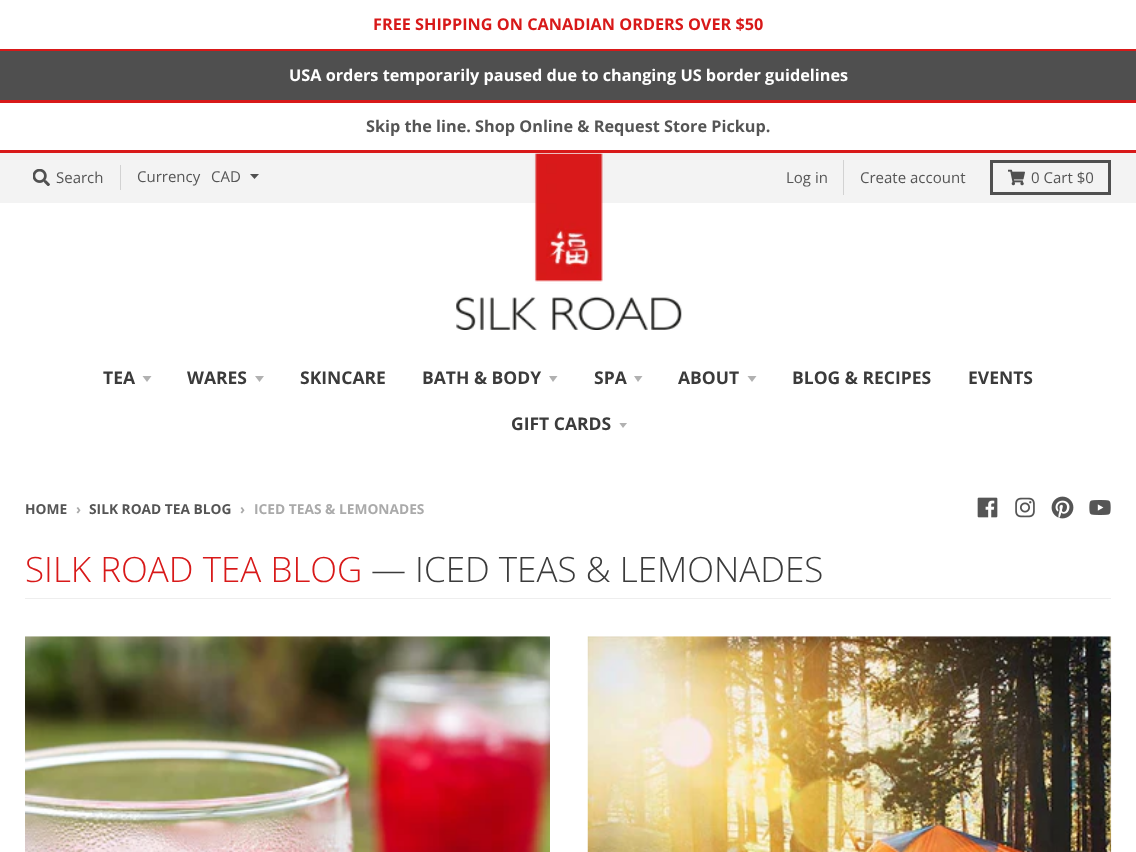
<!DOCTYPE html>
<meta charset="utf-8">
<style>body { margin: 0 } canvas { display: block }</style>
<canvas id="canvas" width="1136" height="852"></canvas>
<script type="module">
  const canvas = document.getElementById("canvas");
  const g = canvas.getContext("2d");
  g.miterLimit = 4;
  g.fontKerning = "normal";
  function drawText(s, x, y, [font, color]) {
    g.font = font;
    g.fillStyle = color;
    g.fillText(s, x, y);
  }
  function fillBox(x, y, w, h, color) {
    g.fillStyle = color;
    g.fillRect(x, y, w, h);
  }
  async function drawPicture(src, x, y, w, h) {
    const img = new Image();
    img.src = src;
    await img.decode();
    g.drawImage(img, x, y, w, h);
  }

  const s1 = ["bold 16.25px Open Sans", "#D81919"];
  const s2 = ["bold 16.25px Open Sans", "#FFFFFF"];
  const s3 = ["bold 16.25px Open Sans", "#555555"];
  const s4 = ["15px Open Sans", "#555555"];
  const s5 = ["bold 17.5px Open Sans", "#3B3B3B"];
  const s6 = ["bold 13.75px Open Sans", "#555555"];
  const s7 = ["bold 13.75px Open Sans", "#AAAAAA"];
  const s8 = ["300 35px Open Sans", "#D81919"];
  const s9 = ["300 35px Open Sans", "#3B3B3B"];

  fillBox(0, 0, 1136, 852, "#FFFFFF");
  fillBox(0, 49, 1136, 2, "#D81919");
  drawText("FREE SHIPPING ON CANADIAN ORDERS OVER $50", 373, 30, s1);
  fillBox(0, 100, 1136, 3, "#D81919");
  fillBox(0, 51, 1136, 49, "#4F4F4F");
  drawText("USA orders temporarily paused due to changing US border guidelines", 289, 81, s2);
  fillBox(0, 150, 1136, 3, "#D81919");
  drawText("Skip the line. Shop Online & Request Store Pickup.", 366, 132, s3);
  fillBox(0, 153, 1136, 50, "#F3F3F3");
  await drawPicture("pic1.png", 33, 169, 17, 17);
  drawText("Search", 56, 183, s4);
  fillBox(120, 165, 1, 25, "#D2D2D2");
  drawText("Currency", 137, 182, s4);
  g.fillStyle = "#505050";
  g.beginPath();
  g.moveTo(250, 174);
  g.lineTo(254.5, 179);
  g.lineTo(259, 174);
  g.closePath();
  g.fill();
  drawText("CAD", 211, 182, s4);
  fillBox(843, 160, 1, 35, "#D2D2D2");
  drawText("Log in", 786, 183, s4);
  drawText("Create account", 860, 183, s4);
  g.strokeStyle = "#505050";
  g.lineWidth = 3;
  g.strokeRect(991.5, 161.5, 118, 32);
  await drawPicture("pic2.png", 1008, 169, 17, 17);
  drawText("0 Cart $0", 1031, 183, s4);
  await drawPicture("pic3.png", 456, 153, 226, 177);
  drawText("TEA", 103, 384, s5);
  g.fillStyle = "#B1B1B1";
  g.beginPath();
  g.moveTo(142.5, 376);
  g.lineTo(147, 382);
  g.lineTo(151.5, 376);
  g.closePath();
  g.fill();
  drawText("WARES", 187, 384, s5);
  g.fillStyle = "#B1B1B1";
  g.beginPath();
  g.moveTo(255, 376);
  g.lineTo(259.5, 382);
  g.lineTo(264, 376);
  g.closePath();
  g.fill();
  drawText("SKINCARE", 300, 384, s5);
  drawText("BATH & BODY", 422, 384, s5);
  g.fillStyle = "#B1B1B1";
  g.beginPath();
  g.moveTo(549, 376);
  g.lineTo(553, 382);
  g.lineTo(557.5, 376);
  g.closePath();
  g.fill();
  drawText("SPA", 594, 384, s5);
  g.fillStyle = "#B1B1B1";
  g.beginPath();
  g.moveTo(634, 376);
  g.lineTo(638, 382);
  g.lineTo(642.5, 376);
  g.closePath();
  g.fill();
  drawText("ABOUT", 678, 384, s5);
  g.fillStyle = "#B1B1B1";
  g.beginPath();
  g.moveTo(747.5, 376);
  g.lineTo(752, 382);
  g.lineTo(756.5, 376);
  g.closePath();
  g.fill();
  drawText("BLOG & RECIPES", 792, 384, s5);
  drawText("EVENTS", 968, 384, s5);
  drawText("GIFT CARDS", 511, 430, s5);
  g.save();
  g.beginPath();
  g.rect(619, 423, 10, 6);
  g.clip();
  g.fillStyle = "#B1B1B1";
  g.beginPath();
  g.moveTo(619, 422.5);
  g.lineTo(623, 428);
  g.lineTo(627.5, 422.5);
  g.closePath();
  g.fill();
  g.restore();
  drawText("HOME", 25, 514, s6);
  drawText("›", 76, 514, s7);
  drawText("SILK ROAD TEA BLOG", 89, 514, s6);
  drawText("›", 240, 514, s7);
  drawText("ICED TEAS & LEMONADES", 254, 514, s7);
  await drawPicture("pic4.png", 977, 497, 21, 21);
  await drawPicture("pic5.png", 1015, 497, 20, 21);
  await drawPicture("pic6.png", 1051, 496, 23, 23);
  await drawPicture("pic7.png", 1089, 500, 22, 15);
  fillBox(25, 598, 1086, 1, "#EEEEEE");
  drawText("SILK ROAD TEA BLOG", 25, 582, s8);
  drawText("— ICED TEAS & LEMONADES", 371, 582, s9);
  await drawPicture("pic8.png", 25, 636, 525, 216);
  await drawPicture("pic9.png", 587, 636, 525, 216);
</script>
